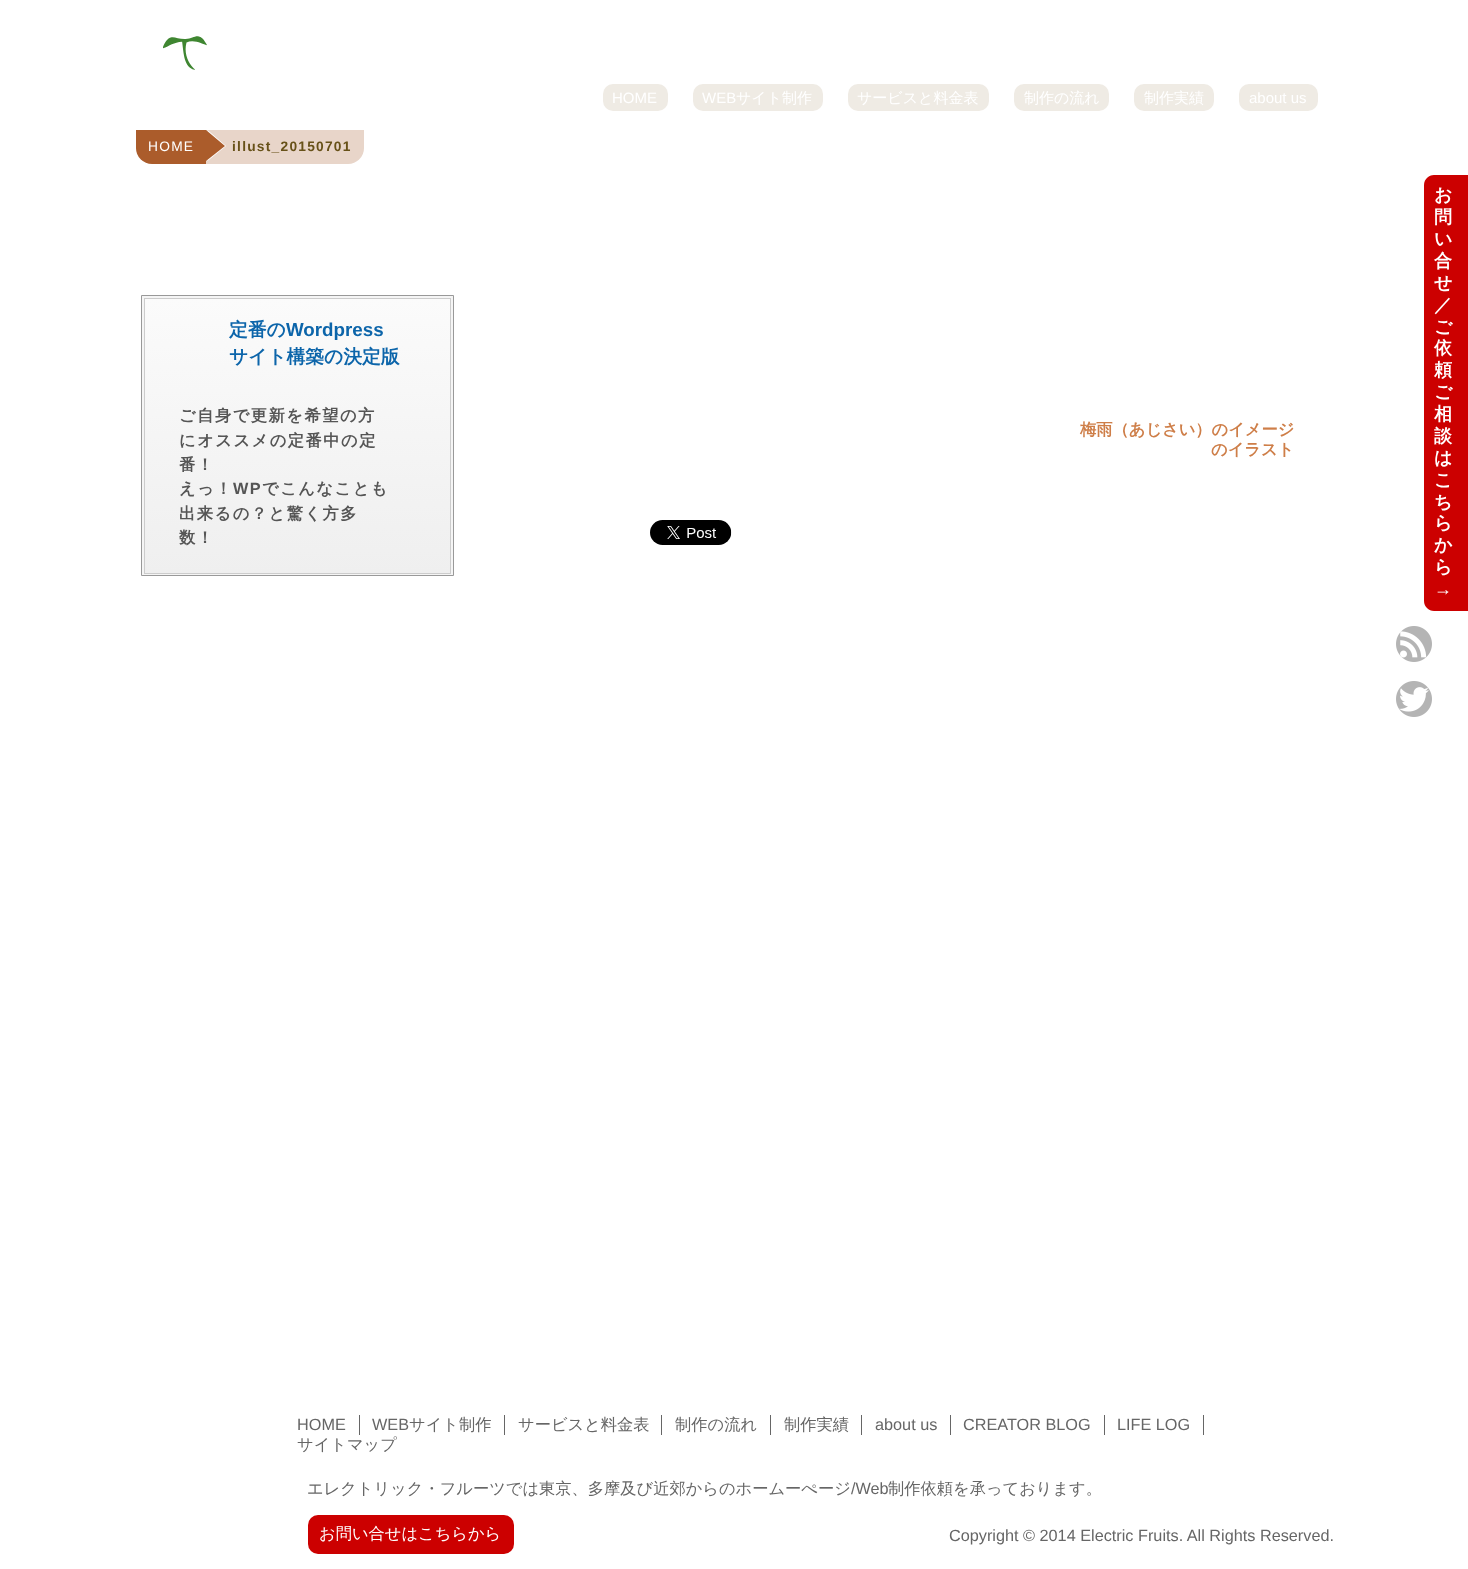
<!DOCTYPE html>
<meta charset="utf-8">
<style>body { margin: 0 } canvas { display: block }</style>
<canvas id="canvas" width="1468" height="1569"></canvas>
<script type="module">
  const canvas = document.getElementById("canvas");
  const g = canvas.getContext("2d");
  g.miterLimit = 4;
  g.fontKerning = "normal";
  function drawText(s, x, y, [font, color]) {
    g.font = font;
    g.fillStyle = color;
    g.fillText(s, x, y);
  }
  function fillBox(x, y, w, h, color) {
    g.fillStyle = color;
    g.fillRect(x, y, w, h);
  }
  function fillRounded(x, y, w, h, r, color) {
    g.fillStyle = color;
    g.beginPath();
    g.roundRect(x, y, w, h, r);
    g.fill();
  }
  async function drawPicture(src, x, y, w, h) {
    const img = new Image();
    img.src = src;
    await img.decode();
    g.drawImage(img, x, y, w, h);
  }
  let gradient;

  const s1 = ["13.75px Liberation Sans", "#FFFFFF"];
  const s2 = ["bold 13.75px Liberation Sans", "#675118"];
  const s3 = ["15px Liberation Sans", "#FFFFFF"];
  const s4 = ["500 15px WenQuanYi Zen Hei", "#FFFFFF"];
  const s5 = ["bold 18px WenQuanYi Zen Hei", "#FFFFFF"];
  const s6 = ["bold 18px Liberation Sans", "#FFFFFF"];
  const s7 = ["bold 18.75px WenQuanYi Zen Hei", "#0C65AA"];
  const s8 = ["bold 18.75px Liberation Sans", "#0C65AA"];
  const s9 = ["bold 16.25px WenQuanYi Zen Hei", "#555555"];
  const s10 = ["bold 16.25px Liberation Sans", "#555555"];
  const s11 = ["bold 16.25px WenQuanYi Zen Hei", "#CE7E48"];
  const s12 = ["16.25px Liberation Sans", "#666666"];
  const s13 = ["500 16.25px WenQuanYi Zen Hei", "#666666"];
  const s14 = ["500 16.25px WenQuanYi Zen Hei", "#FFFFFF"];

  fillBox(0, 0, 1468, 1569, "#FFFFFF");
  g.fillStyle = "#AB5C2B";
  g.beginPath();
  g.roundRect(136, 130, 70, 34, [0, 0, 0, 16]);
  g.fill();
  g.fillStyle = "#E8D5C9";
  g.beginPath();
  g.roundRect(206, 130, 158, 34, [0, 0, 16, 0]);
  g.fill();
  g.fillStyle = "#FFFFFF";
  g.beginPath();
  g.moveTo(207.5, 161);
  g.lineTo(207.5, 130);
  g.lineTo(226, 146);
  g.closePath();
  g.fill();
  g.fillStyle = "#AB5C2B";
  g.beginPath();
  g.moveTo(206, 161);
  g.lineTo(206, 130);
  g.lineTo(225, 146);
  g.closePath();
  g.fill();
  g.letterSpacing = "1.25px";
  drawText("HOME", 148, 151, s1);
  drawText("illust_20150701", 232, 151, s2);
  await drawPicture("pic1.png", 163, 36, 44, 34);
  fillRounded(603, 84, 65, 27, 10, "#EFEBE4");
  g.letterSpacing = "0px";
  drawText("HOME", 612, 103, s3);
  fillRounded(693, 84, 130, 27, 10, "#EFEBE4");
  drawText("WEB", 702, 103, s3);
  drawText("サイト制作", 736, 103, s4);
  fillRounded(848, 84, 141, 27, 10, "#EFEBE4");
  drawText("サービスと料金表", 857, 103, s4);
  fillRounded(1014, 84, 95, 27, 10, "#EFEBE4");
  drawText("制作の流れ", 1024, 103, s4);
  fillRounded(1134, 84, 80, 27, 10, "#EFEBE4");
  drawText("制作実績", 1144, 103, s4);
  fillRounded(1239, 84, 79, 27, 10, "#EFEBE4");
  drawText("about us", 1249, 103, s3);
  g.fillStyle = "#CC0000";
  g.beginPath();
  g.moveTo(1434, 175);
  g.lineTo(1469, 175);
  g.lineTo(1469, 611);
  g.lineTo(1434, 611);
  g.bezierCurveTo(1428.5, 611, 1424, 606.5, 1424, 601);
  g.lineTo(1424, 185);
  g.bezierCurveTo(1424, 179.5, 1428.5, 175, 1434, 175);
  g.closePath();
  g.fill();
  drawText("お", 1434, 201, s5);
  drawText("問", 1434, 223, s5);
  drawText("い", 1434, 245, s5);
  drawText("合", 1434, 267, s5);
  drawText("せ", 1434, 289, s5);
  drawText("／", 1434, 311, s5);
  drawText("ご", 1434, 333, s5);
  drawText("依", 1434, 354, s5);
  drawText("頼", 1434, 376, s5);
  drawText("ご", 1434, 398, s5);
  drawText("相", 1434, 420, s5);
  drawText("談", 1434, 442, s5);
  drawText("は", 1434, 464, s5);
  drawText("こ", 1434, 486, s5);
  drawText("ち", 1434, 508, s5);
  drawText("ら", 1434, 529, s5);
  drawText("か", 1434, 551, s5);
  drawText("ら", 1434, 573, s5);
  drawText("→", 1434, 595, s6);
  await drawPicture("pic2.png", 1396, 626, 36, 36);
  await drawPicture("pic3.png", 1396, 681, 36, 36);
  g.fillStyle = "#F5F5F5";
  g.beginPath();
  g.rect(141.5, 295.5, 312, 280);
  g.fill();
  g.strokeStyle = "#999999";
  g.stroke();
  gradient = g.createLinearGradient(298, 299, 298, 573);
  gradient.addColorStop(0, "#FBFBFB");
  gradient.addColorStop(1, "#EFEFEF");
  g.fillStyle = gradient;
  g.fillRect(145, 299, 305, 274);
  g.strokeStyle = "#CCCCCC";
  g.strokeRect(144.5, 298.5, 306, 275);
  drawText("定番の", 229, 336, s7);
  drawText("Wordpress", 286, 336, s8);
  drawText("サイト構築の決定版", 229, 363, s7);
  g.letterSpacing = "1.5px";
  drawText("ご自身で更新を希望の方", 179, 421, s9);
  drawText("にオススメの定番中の定", 179, 446, s9);
  drawText("番！", 179, 470, s9);
  drawText("えっ！", 179, 494, s9);
  drawText("WP", 233, 494, s10);
  drawText("でこんなことも", 262, 494, s9);
  drawText("出来るの？と驚く方多", 179, 519, s9);
  drawText("数！", 179, 543, s9);
  g.letterSpacing = "0px";
  drawText("梅雨（あじさい）のイメージ", 1080, 435, s11);
  drawText("のイラスト", 1211, 455, s11);
  await drawPicture("pic4.png", 650, 520, 82, 25);
  fillBox(359, 1415, 1, 20, "#666666");
  drawText("HOME", 297, 1430, s12);
  fillBox(504, 1415, 1, 20, "#666666");
  drawText("WEB", 372, 1430, s12);
  drawText("サイト制作", 409, 1430, s13);
  fillBox(661, 1415, 1, 20, "#666666");
  drawText("サービスと料金表", 518, 1430, s13);
  fillBox(770, 1415, 1, 20, "#666666");
  drawText("制作の流れ", 675, 1430, s13);
  fillBox(861, 1415, 1, 20, "#666666");
  drawText("制作実績", 784, 1430, s13);
  fillBox(950, 1415, 1, 20, "#666666");
  drawText("about us", 875, 1430, s12);
  fillBox(1104, 1415, 1, 20, "#666666");
  drawText("CREATOR BLOG", 963, 1430, s12);
  fillBox(1203, 1415, 1, 20, "#666666");
  drawText("LIFE LOG", 1117, 1430, s12);
  drawText("サイトマップ", 297, 1450, s13);
  drawText("エレクトリック・フルーツでは東京、多摩及び近郊からのホームーぺージ", 307, 1494, s13);
  drawText("/Web", 851, 1494, s12);
  drawText("制作依頼を承っております。", 888, 1494, s13);
  fillRounded(308, 1515, 206, 39, 10, "#CC0000");
  drawText("お問い合せはこちらから", 319, 1539, s14);
  drawText("Copyright © 2014 Electric Fruits. All Rights Reserved.", 949, 1541, s12);
</script>
